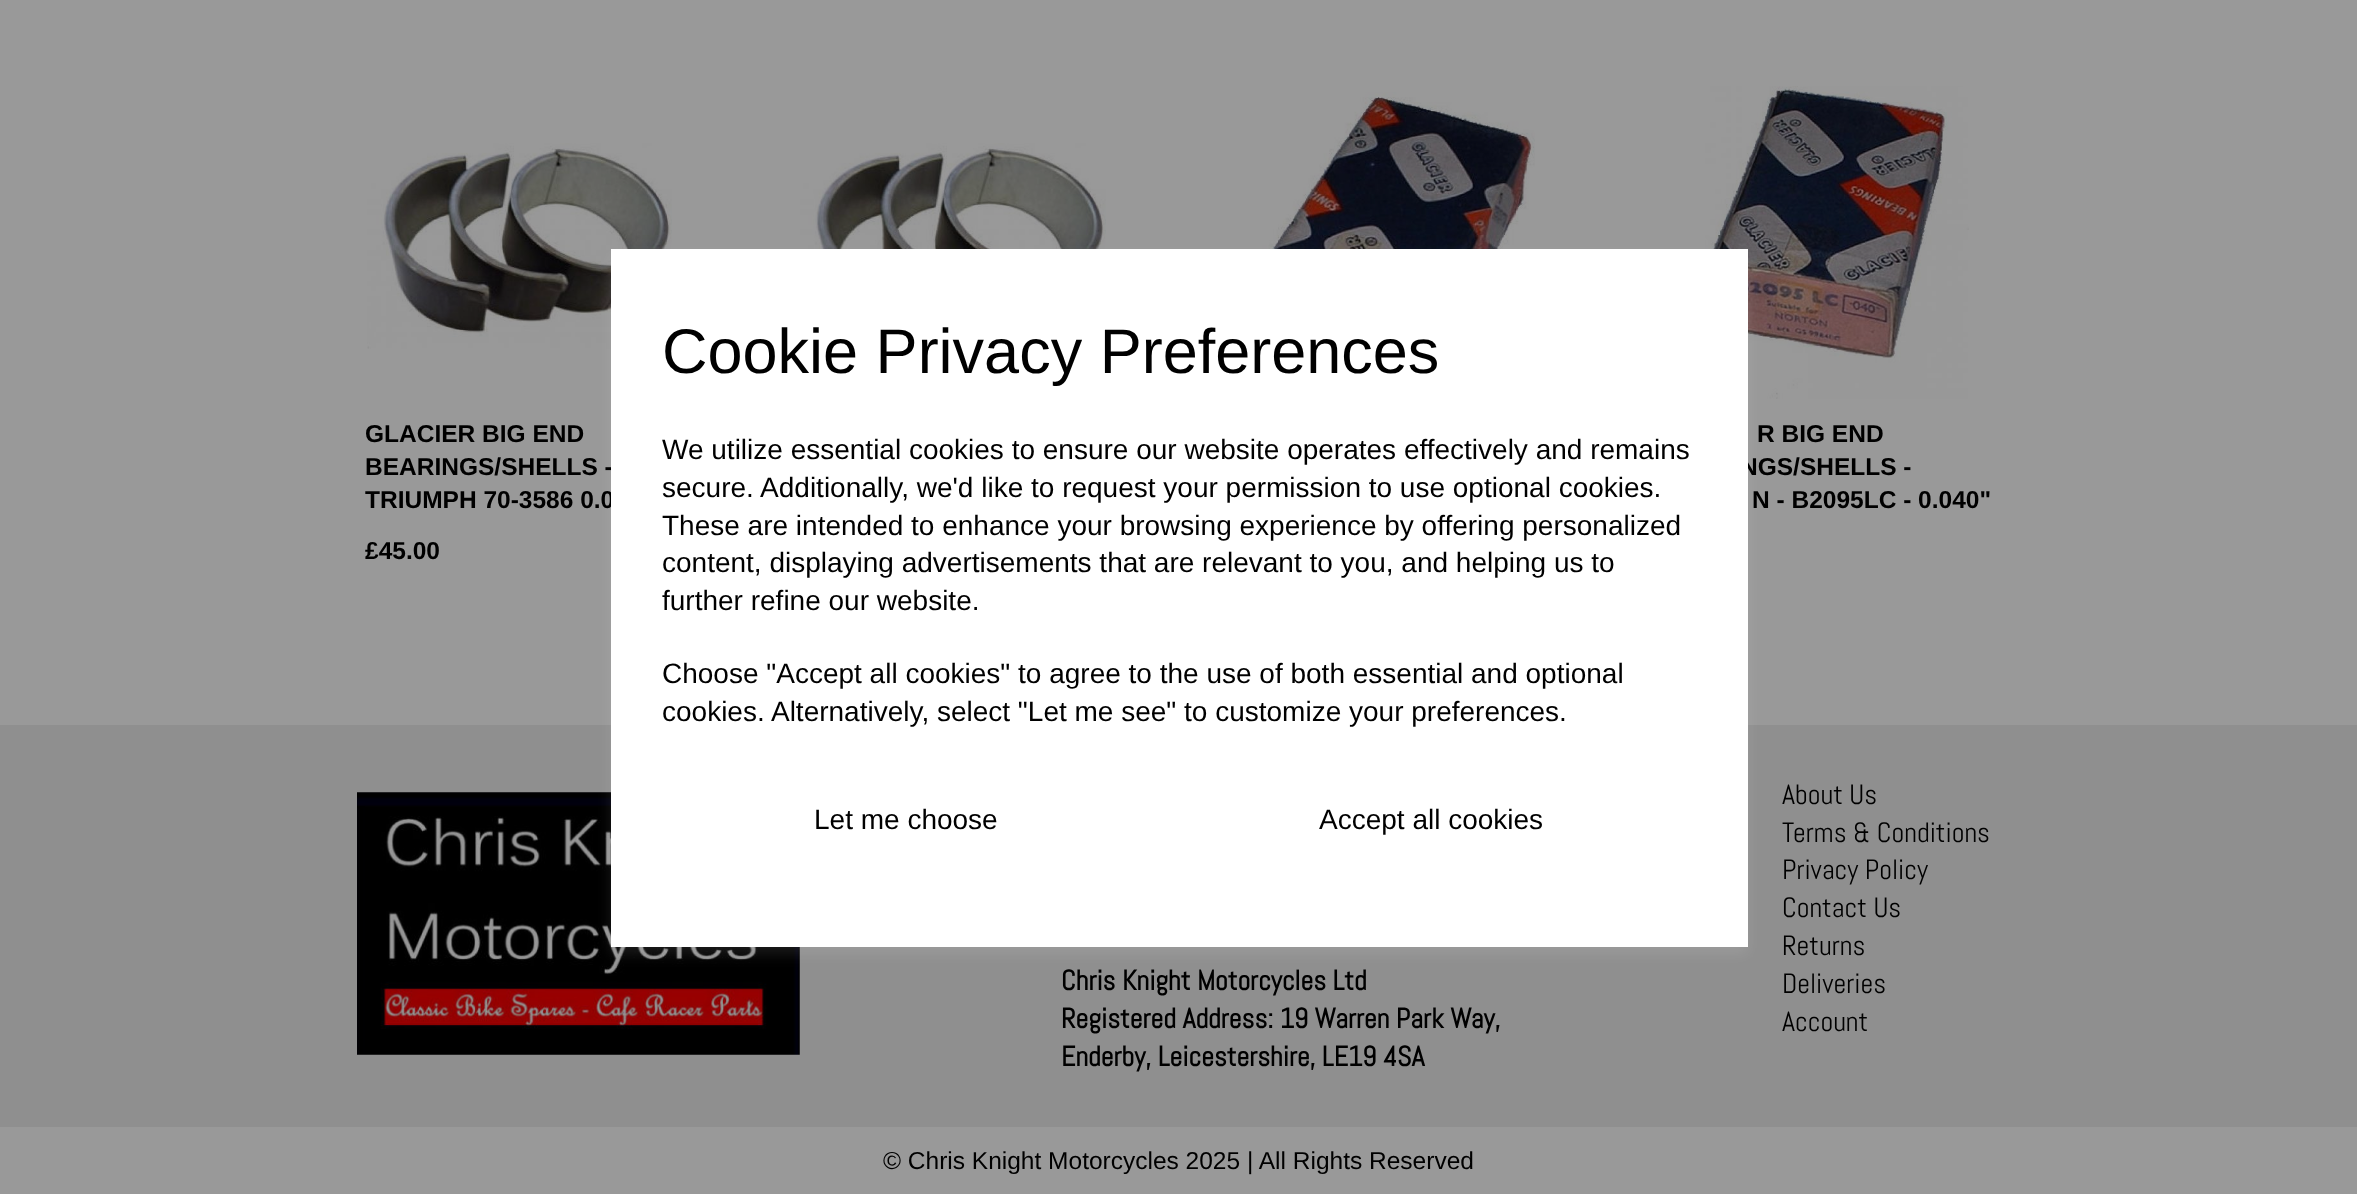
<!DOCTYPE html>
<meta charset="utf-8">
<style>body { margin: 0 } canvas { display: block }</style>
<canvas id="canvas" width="2357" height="1194"></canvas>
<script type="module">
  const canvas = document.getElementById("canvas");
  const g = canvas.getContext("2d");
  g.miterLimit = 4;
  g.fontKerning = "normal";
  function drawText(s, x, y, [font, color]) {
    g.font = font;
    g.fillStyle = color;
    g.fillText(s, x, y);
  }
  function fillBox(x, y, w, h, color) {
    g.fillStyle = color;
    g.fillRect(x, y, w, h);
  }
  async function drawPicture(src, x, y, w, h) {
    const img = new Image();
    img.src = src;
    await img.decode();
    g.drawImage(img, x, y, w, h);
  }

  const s1 = ["bold 24.5px Liberation Sans", "#000000"];
  const s2 = ["63px Liberation Sans", "#000000"];
  const s3 = ["28px Liberation Sans", "#000000"];
  const s4 = ["bold 28px Abel", "#000000"];
  const s5 = ["28px Abel", "#000000"];
  const s6 = ["24.5px Liberation Sans", "#000000"];

  fillBox(0, 0, 2357, 1194, "#999999");
  await drawPicture("pic1.png", 800, 143, 306, 106);
  await drawPicture("pic2.png", 1260, 92, 275, 157);
  await drawPicture("pic3.png", 367, 143, 305, 206);
  await drawPicture("pic4.png", 1702, 86, 267, 313);
  fillBox(0, 725, 2357, 402, "#8F8F8F");
  await drawPicture("pic5.png", 357, 792, 443, 263);
  g.fillStyle = "rgba(255, 255, 255, 0.1)";
  g.filter = "blur(7px)";
  g.beginPath();
  g.rect(611, 256, 1137, 698);
  g.fill();
  g.filter = "none";
  drawText("BEARINGS/SHELLS -", 365, 475, s1);
  drawText("TRIUMPH 70-3586 0.0", 365, 508, s1);
  drawText("NGS/SHELLS -", 1740, 475, s1);
  fillBox(611, 249, 1137, 698, "#FFFFFF");
  drawText("Cookie Privacy Preferences", 662, 373, s2);
  drawText("We utilize essential cookies to ensure our website operates effectively and remains", 662, 459, s3);
  drawText("secure. Additionally, we'd like to request your permission to use optional cookies.", 662, 497, s3);
  drawText("These are intended to enhance your browsing experience by offering personalized", 662, 535, s3);
  drawText("content, displaying advertisements that are relevant to you, and helping us to", 662, 572, s3);
  drawText("further refine our website.", 662, 610, s3);
  drawText("Choose \"Accept all cookies\" to agree to the use of both essential and optional", 662, 683, s3);
  drawText("cookies. Alternatively, select \"Let me see\" to customize your preferences.", 662, 721, s3);
  drawText("Let me choose", 814, 829, s3);
  drawText("Accept all cookies", 1319, 829, s3);
  drawText("GLACIER BIG END", 365, 442, s1);
  drawText("£45.00", 365, 559, s1);
  drawText("R BIG END", 1757, 442, s1);
  drawText("N - B2095LC - 0.040\"", 1752, 508, s1);
  drawText("Chris Knight Motorcycles Ltd", 1061, 990, s4);
  drawText("Registered Address: 19 Warren Park Way,", 1061, 1028, s4);
  drawText("Enderby, Leicestershire, LE19 4SA", 1061, 1066, s4);
  drawText("About Us", 1782, 804, s5);
  drawText("Terms & Conditions", 1782, 842, s5);
  drawText("Privacy Policy", 1782, 879, s5);
  drawText("Contact Us", 1782, 917, s5);
  drawText("Returns", 1782, 955, s5);
  drawText("Deliveries", 1782, 993, s5);
  drawText("Account", 1782, 1031, s5);
  drawText("© Chris Knight Motorcycles 2025 | All Rights Reserved", 883, 1169, s6);
</script>
